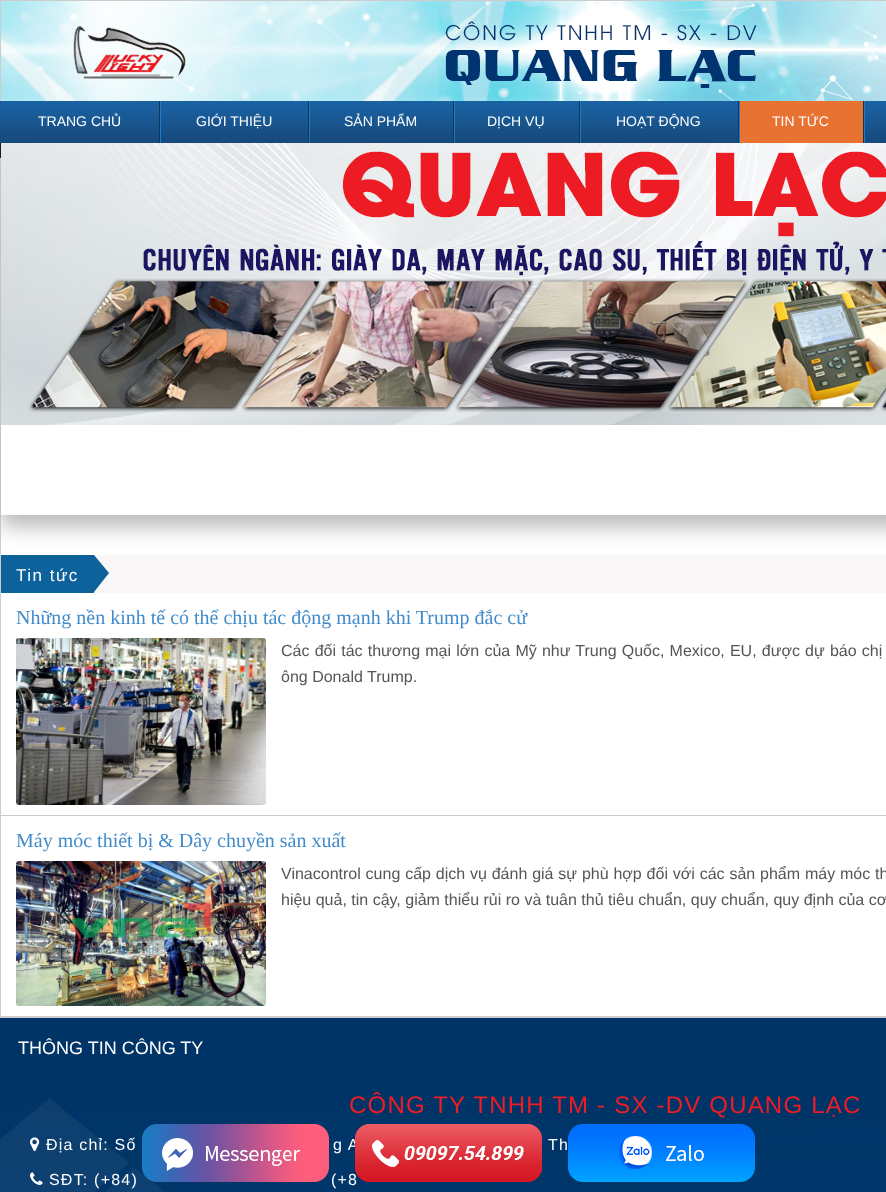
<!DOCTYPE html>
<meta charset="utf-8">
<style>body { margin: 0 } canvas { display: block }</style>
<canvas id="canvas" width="886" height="1192"></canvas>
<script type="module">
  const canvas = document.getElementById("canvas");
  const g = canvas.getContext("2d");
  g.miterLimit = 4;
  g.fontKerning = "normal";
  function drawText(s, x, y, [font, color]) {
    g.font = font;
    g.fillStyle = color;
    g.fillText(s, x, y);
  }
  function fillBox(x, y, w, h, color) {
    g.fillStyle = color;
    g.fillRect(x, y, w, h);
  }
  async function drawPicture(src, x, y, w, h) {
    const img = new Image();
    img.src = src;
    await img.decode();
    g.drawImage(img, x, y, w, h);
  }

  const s1 = ["14px Liberation Sans", "#FFFFFF"];
  const s2 = ["17px Liberation Sans", "#FFFFFF"];
  const s3 = ["20px Liberation Serif", "#428BCA"];
  const s4 = ["16px Liberation Sans", "#555555"];
  const s5 = ["18px Liberation Sans", "#FFFFFF"];
  const s6 = ["24px Liberation Sans", "#EE1C25"];
  const s7 = ["16px Liberation Sans", "#FFFFFF"];

  fillBox(0, 0, 886, 1192, "#FFFFFF");
  g.strokeStyle = "#CCCCCC";
  g.strokeRect(0.5, 0.5, 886, 1017);
  await drawPicture("pic1.png", 1, 1, 885, 100);
  g.save();
  g.beginPath();
  g.moveTo(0, 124);
  g.lineTo(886, 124);
  g.lineTo(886, 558);
  g.lineTo(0, 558);
  g.closePath();
  g.moveTo(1, 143);
  g.lineTo(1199, 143);
  g.lineTo(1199, 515);
  g.lineTo(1, 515);
  g.closePath();
  g.clip("evenodd");
  g.fillStyle = "#BBBBBB";
  g.filter = "blur(10px)";
  g.beginPath();
  g.rect(1, 155, 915, 372);
  g.fill();
  g.filter = "none";
  g.restore();
  await drawPicture("pic2.png", 1, 101, 885, 42);
  await drawPicture("pic3.png", 0, 101, 1, 57);
  drawText("TRANG CHỦ", 38, 126, s1);
  await drawPicture("pic4.png", 159, 101, 2, 42);
  drawText("GIỚI THIỆU", 196, 126, s1);
  await drawPicture("pic4.png", 308, 101, 2, 42);
  drawText("SẢN PHẨM", 344, 126, s1);
  await drawPicture("pic4.png", 453, 101, 2, 42);
  drawText("DỊCH VỤ", 487, 126, s1);
  await drawPicture("pic4.png", 579, 101, 2, 42);
  drawText("HOẠT ĐỘNG", 616, 126, s1);
  fillBox(740, 101, 123, 42, "#E87232");
  await drawPicture("pic4.png", 738, 101, 2, 42);
  drawText("TIN TỨC", 772, 126, s1);
  await drawPicture("pic4.png", 863, 101, 2, 42);
  await drawPicture("pic5.png", 1, 143, 885, 282);
  fillBox(94, 555, 792, 38, "#F9F7F7");
  fillBox(1, 555, 93, 38, "#0D629C");
  g.letterSpacing = "1.5px";
  drawText("Tin tức", 16, 581, s2);
  g.fillStyle = "#0D629C";
  g.beginPath();
  g.moveTo(94, 592);
  g.lineTo(94, 555);
  g.lineTo(109, 573);
  g.closePath();
  g.fill();
  fillBox(1, 815, 885, 1, "#CCCCCC");
  g.letterSpacing = "0px";
  drawText("Những nền kinh tế có thể chịu tác động mạnh khi Trump đắc cử", 16, 624, s3);
  await drawPicture("pic6.png", 16, 638, 250, 167);
  g.wordSpacing = "0.75px";
  drawText("Các đối tác thương mại lớn của Mỹ như Trung Quốc, Mexico, EU, được dự báo chị", 281, 656, s4);
  g.wordSpacing = "0px";
  drawText("ông Donald Trump.", 281, 682, s4);
  fillBox(1, 1016, 885, 1, "#CCCCCC");
  drawText("Máy móc thiết bị & Dây chuyền sản xuất", 16, 847, s3);
  await drawPicture("pic7.png", 16, 861, 250, 145);
  g.wordSpacing = "0.4px";
  drawText("Vinacontrol cung cấp dịch vụ đánh giá sự phù hợp đối với các sản phẩm máy móc th", 281, 879, s4);
  g.wordSpacing = "0px";
  drawText("hiệu quả, tin cậy, giảm thiểu rủi ro và tuân thủ tiêu chuẩn, quy chuẩn, quy định của cơ", 281, 905, s4);
  await drawPicture("pic8.png", 0, 1018, 886, 174);
  drawText("THÔNG TIN CÔNG TY", 18, 1054, s5);
  g.letterSpacing = "1.2px";
  drawText("CÔNG TY TNHH TM - SX -DV QUANG LẠC", 349, 1113, s6);
  await drawPicture("pic9.png", 30, 1137, 10, 15);
  drawText("Địa chỉ: Số", 46, 1150, s7);
  drawText("g A", 333, 1150, s7);
  drawText("Th", 548, 1150, s7);
  await drawPicture("pic10.png", 30, 1172, 13, 13);
  drawText("SĐT: (+84)", 49, 1185, s7);
  drawText("(+8", 331, 1185, s7);
  await drawPicture("pic11.png", 142, 1124, 187, 58);
  await drawPicture("pic12.png", 355, 1124, 187, 58);
  await drawPicture("pic13.png", 568, 1124, 187, 58);
</script>
